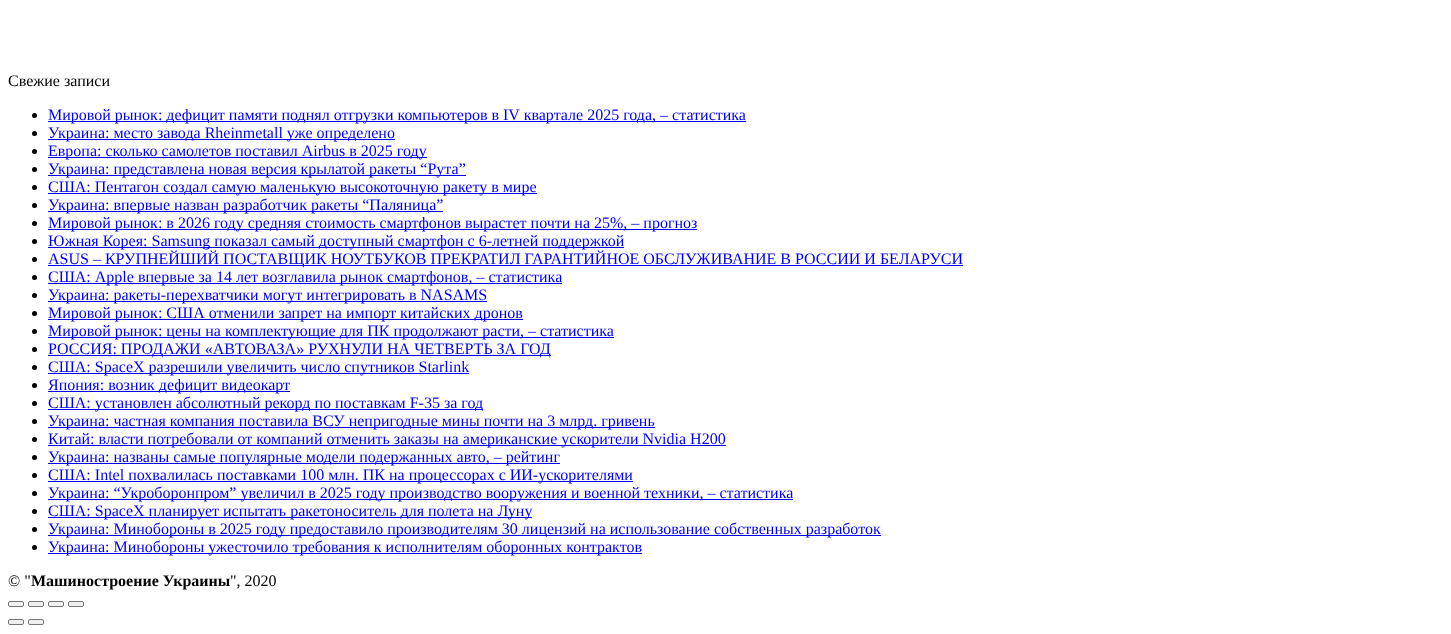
<!DOCTYPE html>
<meta charset="utf-8">
<style>body { margin: 0 } canvas { display: block }</style>
<canvas id="canvas" width="1451" height="634"></canvas>
<script type="module">
  const canvas = document.getElementById("canvas");
  const g = canvas.getContext("2d");
  g.miterLimit = 4;
  g.fontKerning = "normal";
  function drawText(s, x, y, [font, color]) {
    g.font = font;
    g.fillStyle = color;
    g.fillText(s, x, y);
  }
  function fillBox(x, y, w, h, color) {
    g.fillStyle = color;
    g.fillRect(x, y, w, h);
  }

  const s1 = ["16px Liberation Serif", "#000000"];
  const s2 = ["16px Liberation Serif", "#0000EE"];
  const s3 = ["bold 16px Liberation Serif", "#000000"];

  fillBox(0, 0, 1451, 634, "#FFFFFF");
  drawText("Свежие записи", 8, 86, s1);
  g.beginPath();
  g.arc(34.5, 115.5, 2.5, 0, Math.PI * 2);
  g.fill();
  fillBox(48, 121, 698, 1, "#0000EE");
  drawText("Мировой рынок: дефицит памяти поднял отгрузки компьютеров в IV квартале 2025 года, – статистика", 48, 120, s2);
  g.fillStyle = "#000000";
  g.beginPath();
  g.arc(34.5, 133.5, 2.5, 0, Math.PI * 2);
  g.fill();
  fillBox(48, 139, 347, 1, "#0000EE");
  drawText("Украина: место завода Rheinmetall уже определено", 48, 138, s2);
  g.fillStyle = "#000000";
  g.beginPath();
  g.arc(34.5, 151.5, 2.5, 0, Math.PI * 2);
  g.fill();
  fillBox(48, 157, 379, 1, "#0000EE");
  drawText("Европа: сколько самолетов поставил Airbus в 2025 году", 48, 156, s2);
  g.fillStyle = "#000000";
  g.beginPath();
  g.arc(34.5, 169.5, 2.5, 0, Math.PI * 2);
  g.fill();
  fillBox(48, 175, 418, 1, "#0000EE");
  drawText("Украина: представлена новая версия крылатой ракеты “Рута”", 48, 174, s2);
  g.fillStyle = "#000000";
  g.beginPath();
  g.arc(34.5, 187.5, 2.5, 0, Math.PI * 2);
  g.fill();
  fillBox(48, 193, 489, 1, "#0000EE");
  drawText("США: Пентагон создал самую маленькую высокоточную ракету в мире", 48, 192, s2);
  g.fillStyle = "#000000";
  g.beginPath();
  g.arc(34.5, 205.5, 2.5, 0, Math.PI * 2);
  g.fill();
  fillBox(48, 211, 395, 1, "#0000EE");
  drawText("Украина: впервые назван разработчик ракеты “Паляница”", 48, 210, s2);
  g.fillStyle = "#000000";
  g.beginPath();
  g.arc(34.5, 223.5, 2.5, 0, Math.PI * 2);
  g.fill();
  fillBox(48, 229, 649, 1, "#0000EE");
  drawText("Мировой рынок: в 2026 году средняя стоимость смартфонов вырастет почти на 25%, – прогноз", 48, 228, s2);
  g.fillStyle = "#000000";
  g.beginPath();
  g.arc(34.5, 241.5, 2.5, 0, Math.PI * 2);
  g.fill();
  fillBox(48, 247, 576, 1, "#0000EE");
  drawText("Южная Корея: Samsung показал самый доступный смартфон с 6-летней поддержкой", 48, 246, s2);
  g.fillStyle = "#000000";
  g.beginPath();
  g.arc(34.5, 259.5, 2.5, 0, Math.PI * 2);
  g.fill();
  fillBox(48, 265, 915, 1, "#0000EE");
  drawText("ASUS – КРУПНЕЙШИЙ ПОСТАВЩИК НОУТБУКОВ ПРЕКРАТИЛ ГАРАНТИЙНОЕ ОБСЛУЖИВАНИЕ В РОССИИ И БЕЛАРУСИ", 48, 264, s2);
  g.fillStyle = "#000000";
  g.beginPath();
  g.arc(34.5, 277.5, 2.5, 0, Math.PI * 2);
  g.fill();
  fillBox(48, 283, 514, 1, "#0000EE");
  drawText("США: Apple впервые за 14 лет возглавила рынок смартфонов, – статистика", 48, 282, s2);
  g.fillStyle = "#000000";
  g.beginPath();
  g.arc(34.5, 295.5, 2.5, 0, Math.PI * 2);
  g.fill();
  fillBox(48, 301, 439, 1, "#0000EE");
  drawText("Украина: ракеты-перехватчики могут интегрировать в NASAMS", 48, 300, s2);
  g.fillStyle = "#000000";
  g.beginPath();
  g.arc(34.5, 313.5, 2.5, 0, Math.PI * 2);
  g.fill();
  fillBox(48, 319, 475, 1, "#0000EE");
  drawText("Мировой рынок: США отменили запрет на импорт китайских дронов", 48, 318, s2);
  g.fillStyle = "#000000";
  g.beginPath();
  g.arc(34.5, 331.5, 2.5, 0, Math.PI * 2);
  g.fill();
  fillBox(48, 337, 566, 1, "#0000EE");
  drawText("Мировой рынок: цены на комплектующие для ПК продолжают расти, – статистика", 48, 336, s2);
  g.fillStyle = "#000000";
  g.beginPath();
  g.arc(34.5, 349.5, 2.5, 0, Math.PI * 2);
  g.fill();
  fillBox(48, 355, 503, 1, "#0000EE");
  drawText("РОССИЯ: ПРОДАЖИ «АВТОВАЗА» РУХНУЛИ НА ЧЕТВЕРТЬ ЗА ГОД", 48, 354, s2);
  g.fillStyle = "#000000";
  g.beginPath();
  g.arc(34.5, 367.5, 2.5, 0, Math.PI * 2);
  g.fill();
  fillBox(48, 373, 421, 1, "#0000EE");
  drawText("США: SpaceX разрешили увеличить число спутников Starlink", 48, 372, s2);
  g.fillStyle = "#000000";
  g.beginPath();
  g.arc(34.5, 385.5, 2.5, 0, Math.PI * 2);
  g.fill();
  fillBox(48, 391, 242, 1, "#0000EE");
  drawText("Япония: возник дефицит видеокарт", 48, 390, s2);
  g.fillStyle = "#000000";
  g.beginPath();
  g.arc(34.5, 403.5, 2.5, 0, Math.PI * 2);
  g.fill();
  fillBox(48, 409, 435, 1, "#0000EE");
  drawText("США: установлен абсолютный рекорд по поставкам F-35 за год", 48, 408, s2);
  g.fillStyle = "#000000";
  g.beginPath();
  g.arc(34.5, 421.5, 2.5, 0, Math.PI * 2);
  g.fill();
  fillBox(48, 427, 607, 1, "#0000EE");
  drawText("Украина: частная компания поставила ВСУ непригодные мины почти на 3 млрд. гривень", 48, 426, s2);
  g.fillStyle = "#000000";
  g.beginPath();
  g.arc(34.5, 439.5, 2.5, 0, Math.PI * 2);
  g.fill();
  fillBox(48, 445, 678, 1, "#0000EE");
  drawText("Китай: власти потребовали от компаний отменить заказы на американские ускорители Nvidia H200", 48, 444, s2);
  g.fillStyle = "#000000";
  g.beginPath();
  g.arc(34.5, 457.5, 2.5, 0, Math.PI * 2);
  g.fill();
  fillBox(48, 463, 512, 1, "#0000EE");
  drawText("Украина: названы самые популярные модели подержанных авто, – рейтинг", 48, 462, s2);
  g.fillStyle = "#000000";
  g.beginPath();
  g.arc(34.5, 475.5, 2.5, 0, Math.PI * 2);
  g.fill();
  fillBox(48, 481, 585, 1, "#0000EE");
  drawText("США: Intel похвалилась поставками 100 млн. ПК на процессорах с ИИ-ускорителями", 48, 480, s2);
  g.fillStyle = "#000000";
  g.beginPath();
  g.arc(34.5, 493.5, 2.5, 0, Math.PI * 2);
  g.fill();
  fillBox(48, 499, 745, 1, "#0000EE");
  drawText("Украина: “Укроборонпром” увеличил в 2025 году производство вооружения и военной техники, – статистика", 48, 498, s2);
  g.fillStyle = "#000000";
  g.beginPath();
  g.arc(34.5, 511.5, 2.5, 0, Math.PI * 2);
  g.fill();
  fillBox(48, 517, 484, 1, "#0000EE");
  drawText("США: SpaceX планирует испытать ракетоноситель для полета на Луну", 48, 516, s2);
  g.fillStyle = "#000000";
  g.beginPath();
  g.arc(34.5, 529.5, 2.5, 0, Math.PI * 2);
  g.fill();
  fillBox(48, 535, 833, 1, "#0000EE");
  drawText("Украина: Минобороны в 2025 году предоставило производителям 30 лицензий на использование собственных разработок", 48, 534, s2);
  g.fillStyle = "#000000";
  g.beginPath();
  g.arc(34.5, 547.5, 2.5, 0, Math.PI * 2);
  g.fill();
  fillBox(48, 553, 594, 1, "#0000EE");
  drawText("Украина: Минобороны ужесточило требования к исполнителям оборонных контрактов", 48, 552, s2);
  drawText("© \"", 8, 586, s1);
  drawText("Машиностроение Украины", 31, 586, s3);
  drawText("\", 2020", 230, 586, s1);
  g.fillStyle = "#EFEFEF";
  g.beginPath();
  g.roundRect(8.5, 601.5, 15, 5, 1.5);
  g.fill();
  g.strokeStyle = "#767676";
  g.stroke();
  g.beginPath();
  g.roundRect(28.5, 601.5, 15, 5, 1.5);
  g.fill();
  g.stroke();
  g.beginPath();
  g.roundRect(48.5, 601.5, 15, 5, 1.5);
  g.fill();
  g.stroke();
  g.beginPath();
  g.roundRect(68.5, 601.5, 15, 5, 1.5);
  g.fill();
  g.stroke();
  g.beginPath();
  g.roundRect(8.5, 619.5, 15, 5, 1.5);
  g.fill();
  g.stroke();
  g.beginPath();
  g.roundRect(28.5, 619.5, 15, 5, 1.5);
  g.fill();
  g.stroke();
</script>
